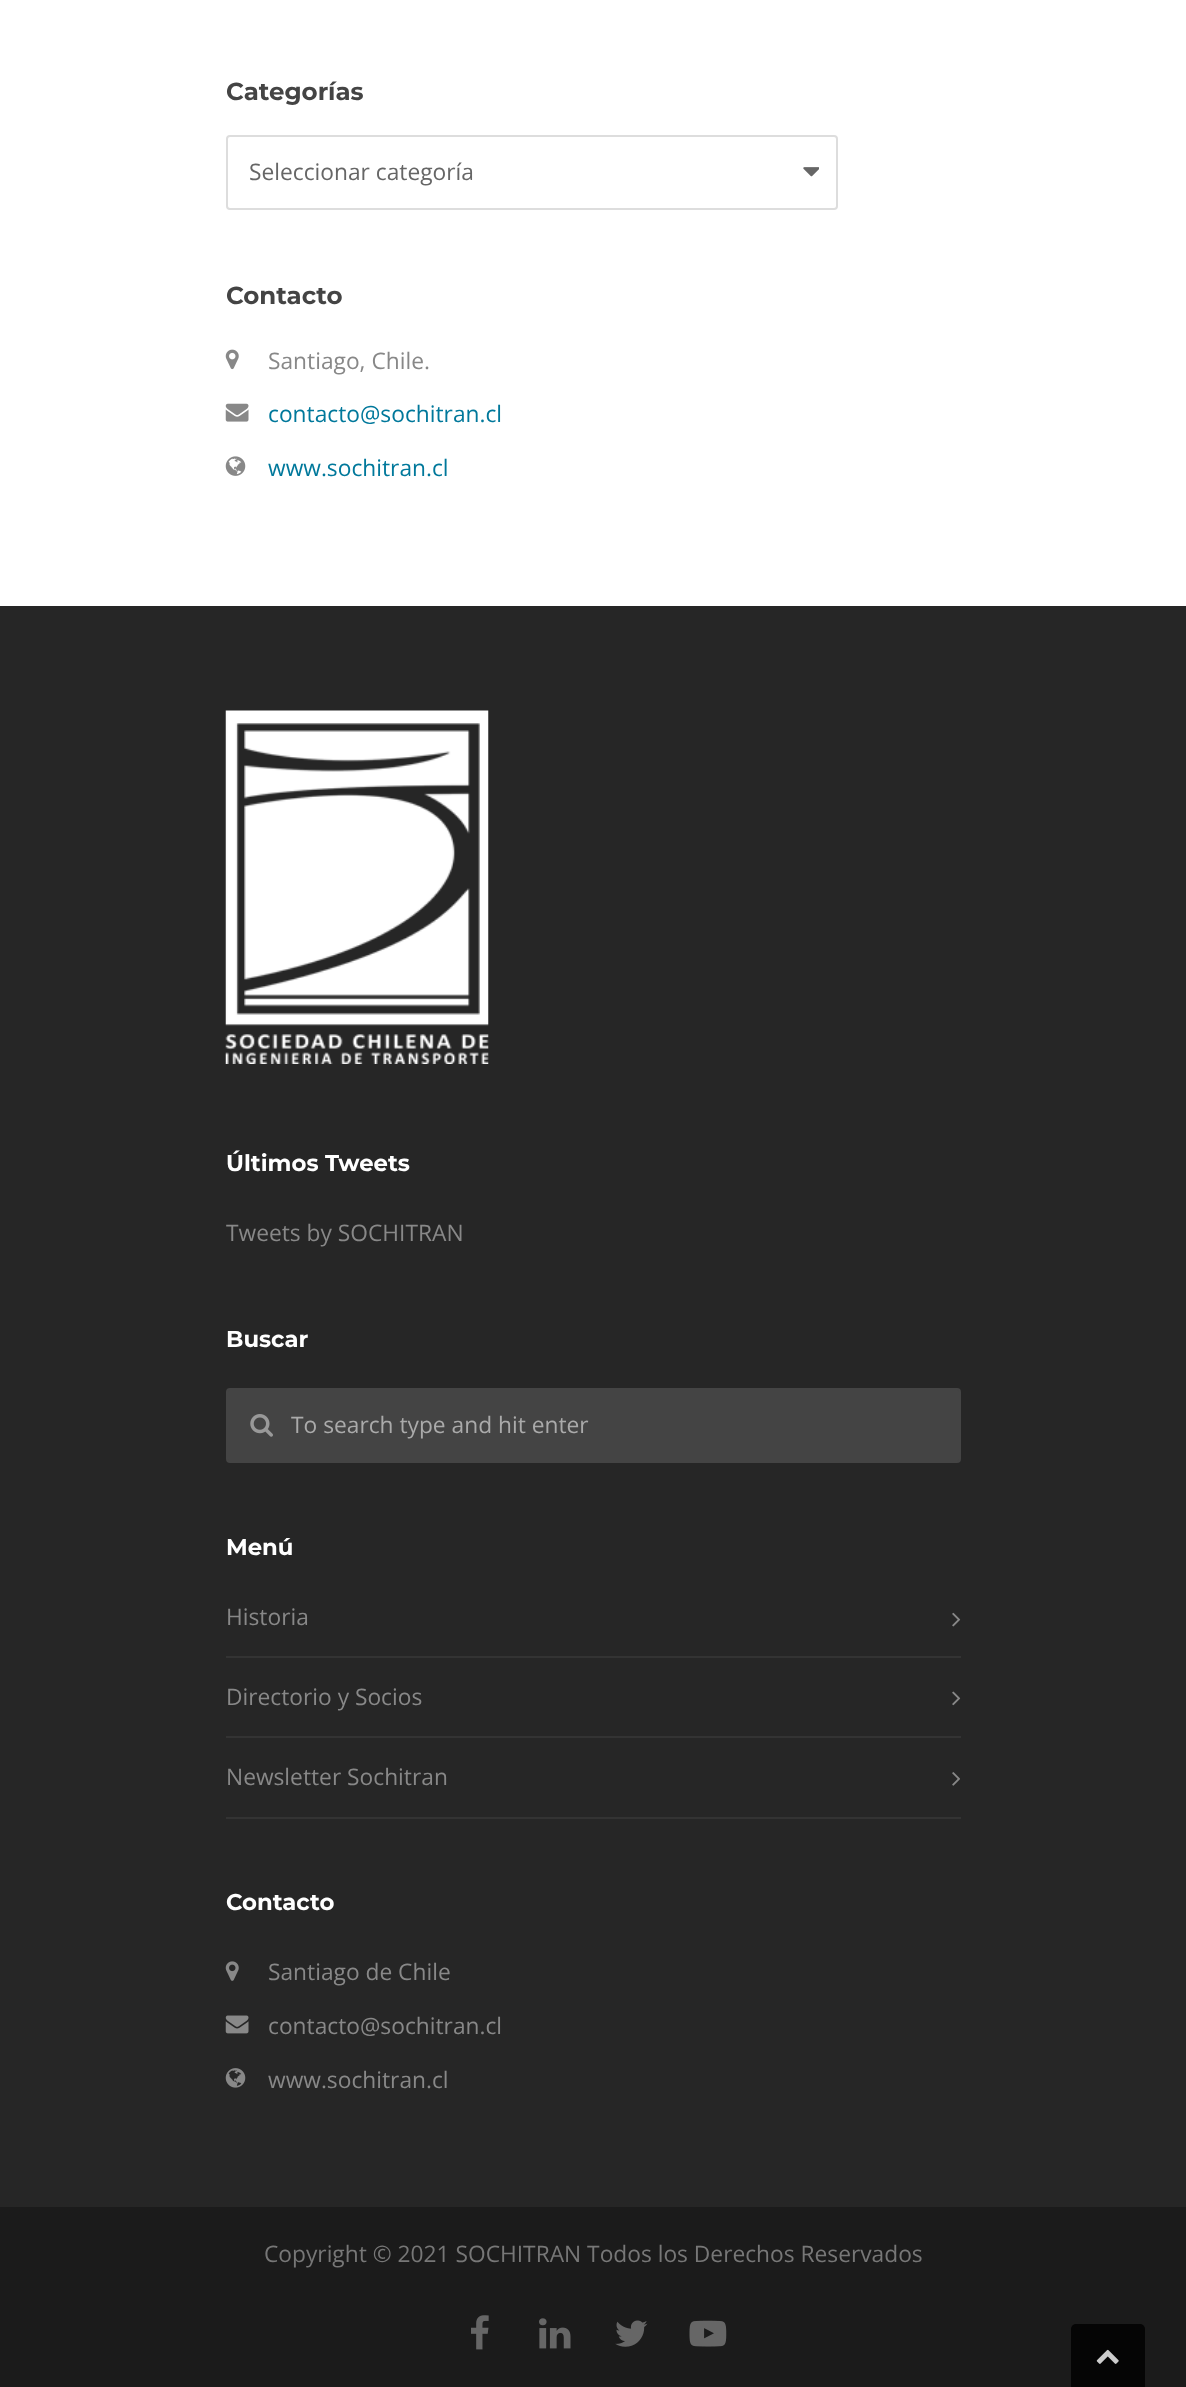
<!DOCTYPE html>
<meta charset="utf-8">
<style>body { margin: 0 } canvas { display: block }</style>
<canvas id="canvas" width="1186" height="2387"></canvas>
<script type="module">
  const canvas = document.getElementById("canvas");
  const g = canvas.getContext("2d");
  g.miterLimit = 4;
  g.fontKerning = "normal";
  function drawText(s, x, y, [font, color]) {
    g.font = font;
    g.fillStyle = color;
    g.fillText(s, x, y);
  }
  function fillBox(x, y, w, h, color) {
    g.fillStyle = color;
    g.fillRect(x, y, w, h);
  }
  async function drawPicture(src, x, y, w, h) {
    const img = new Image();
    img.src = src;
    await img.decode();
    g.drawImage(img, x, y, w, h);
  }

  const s1 = ["bold 24.5px Montserrat", "#444444"];
  const s2 = ["22.75px Open Sans", "#666666"];
  const s3 = ["22.75px Open Sans", "#888888"];
  const s4 = ["22.75px Open Sans", "#00789B"];
  const s5 = ["bold 22.75px Montserrat", "#FFFFFF"];
  const s6 = ["22.75px Open Sans", "#AAAAAA"];
  const s7 = ["22.75px Open Sans", "#777777"];

  fillBox(0, 0, 1186, 2387, "#FFFFFF");
  drawText("Categorías", 226, 100, s1);
  await drawPicture("pic1.png", 803, 167, 16, 10);
  g.beginPath();
  g.roundRect(227, 136, 610, 73, 3);
  g.strokeStyle = "#DDDDDD";
  g.lineWidth = 2;
  g.stroke();
  drawText("Seleccionar categoría", 249, 180, s2);
  drawText("Contacto", 226, 304, s1);
  await drawPicture("pic2.png", 225, 349, 14, 21);
  drawText("Santiago, Chile.", 268, 369, s3);
  await drawPicture("pic3.png", 225, 403, 24, 19);
  drawText("contacto@sochitran.cl", 268, 422, s4);
  await drawPicture("pic4.png", 225, 456, 21, 20);
  drawText("www.sochitran.cl", 268, 476, s4);
  fillBox(0, 606, 1186, 1601, "#262626");
  await drawPicture("pic5.png", 225, 710, 264, 354);
  drawText("Últimos Tweets", 226, 1171, s5);
  drawText("Tweets by SOCHITRAN", 226, 1241, s3);
  drawText("Buscar", 226, 1347, s5);
  g.fillStyle = "#444444";
  g.beginPath();
  g.roundRect(227, 1389, 733, 73, 3);
  g.fill();
  g.strokeStyle = "#444444";
  g.stroke();
  await drawPicture("pic6.png", 250, 1414, 23, 23);
  g.save();
  g.beginPath();
  g.rect(291, 1407, 647, 37);
  g.clip();
  drawText("To search type and hit enter", 291, 1433, s6);
  g.restore();
  drawText("Menú", 226, 1555, s5);
  fillBox(226, 1656, 735, 2, "#333333");
  drawText("Historia", 226, 1625, s3);
  await drawPicture("pic7.png", 952, 1612, 9, 15);
  fillBox(226, 1736, 735, 2, "#333333");
  drawText("Directorio y Socios", 226, 1705, s3);
  await drawPicture("pic8.png", 952, 1691, 9, 15);
  fillBox(226, 1817, 735, 2, "#333333");
  drawText("Newsletter Sochitran", 226, 1785, s3);
  await drawPicture("pic9.png", 952, 1772, 8, 14);
  drawText("Contacto", 226, 1910, s5);
  await drawPicture("pic10.png", 225, 1961, 14, 20);
  drawText("Santiago de Chile", 268, 1980, s3);
  await drawPicture("pic11.png", 225, 2015, 24, 19);
  drawText("contacto@sochitran.cl", 268, 2034, s3);
  await drawPicture("pic12.png", 225, 2068, 21, 20);
  drawText("www.sochitran.cl", 268, 2088, s3);
  fillBox(0, 2207, 1186, 180, "#1B1B1B");
  drawText("Copyright © 2021 SOCHITRAN Todos los Derechos Reservados", 264, 2262, s7);
  await drawPicture("pic13.png", 471, 2315, 18, 35);
  await drawPicture("pic14.png", 539, 2318, 32, 31);
  await drawPicture("pic15.png", 615, 2320, 33, 27);
  await drawPicture("pic16.png", 689, 2320, 38, 27);
  g.fillStyle = "#050505";
  g.beginPath();
  g.roundRect(1071, 2324, 74, 63, [5, 5, 0, 0]);
  g.fill();
  await drawPicture("pic17.png", 1096, 2349, 23, 15);
</script>
